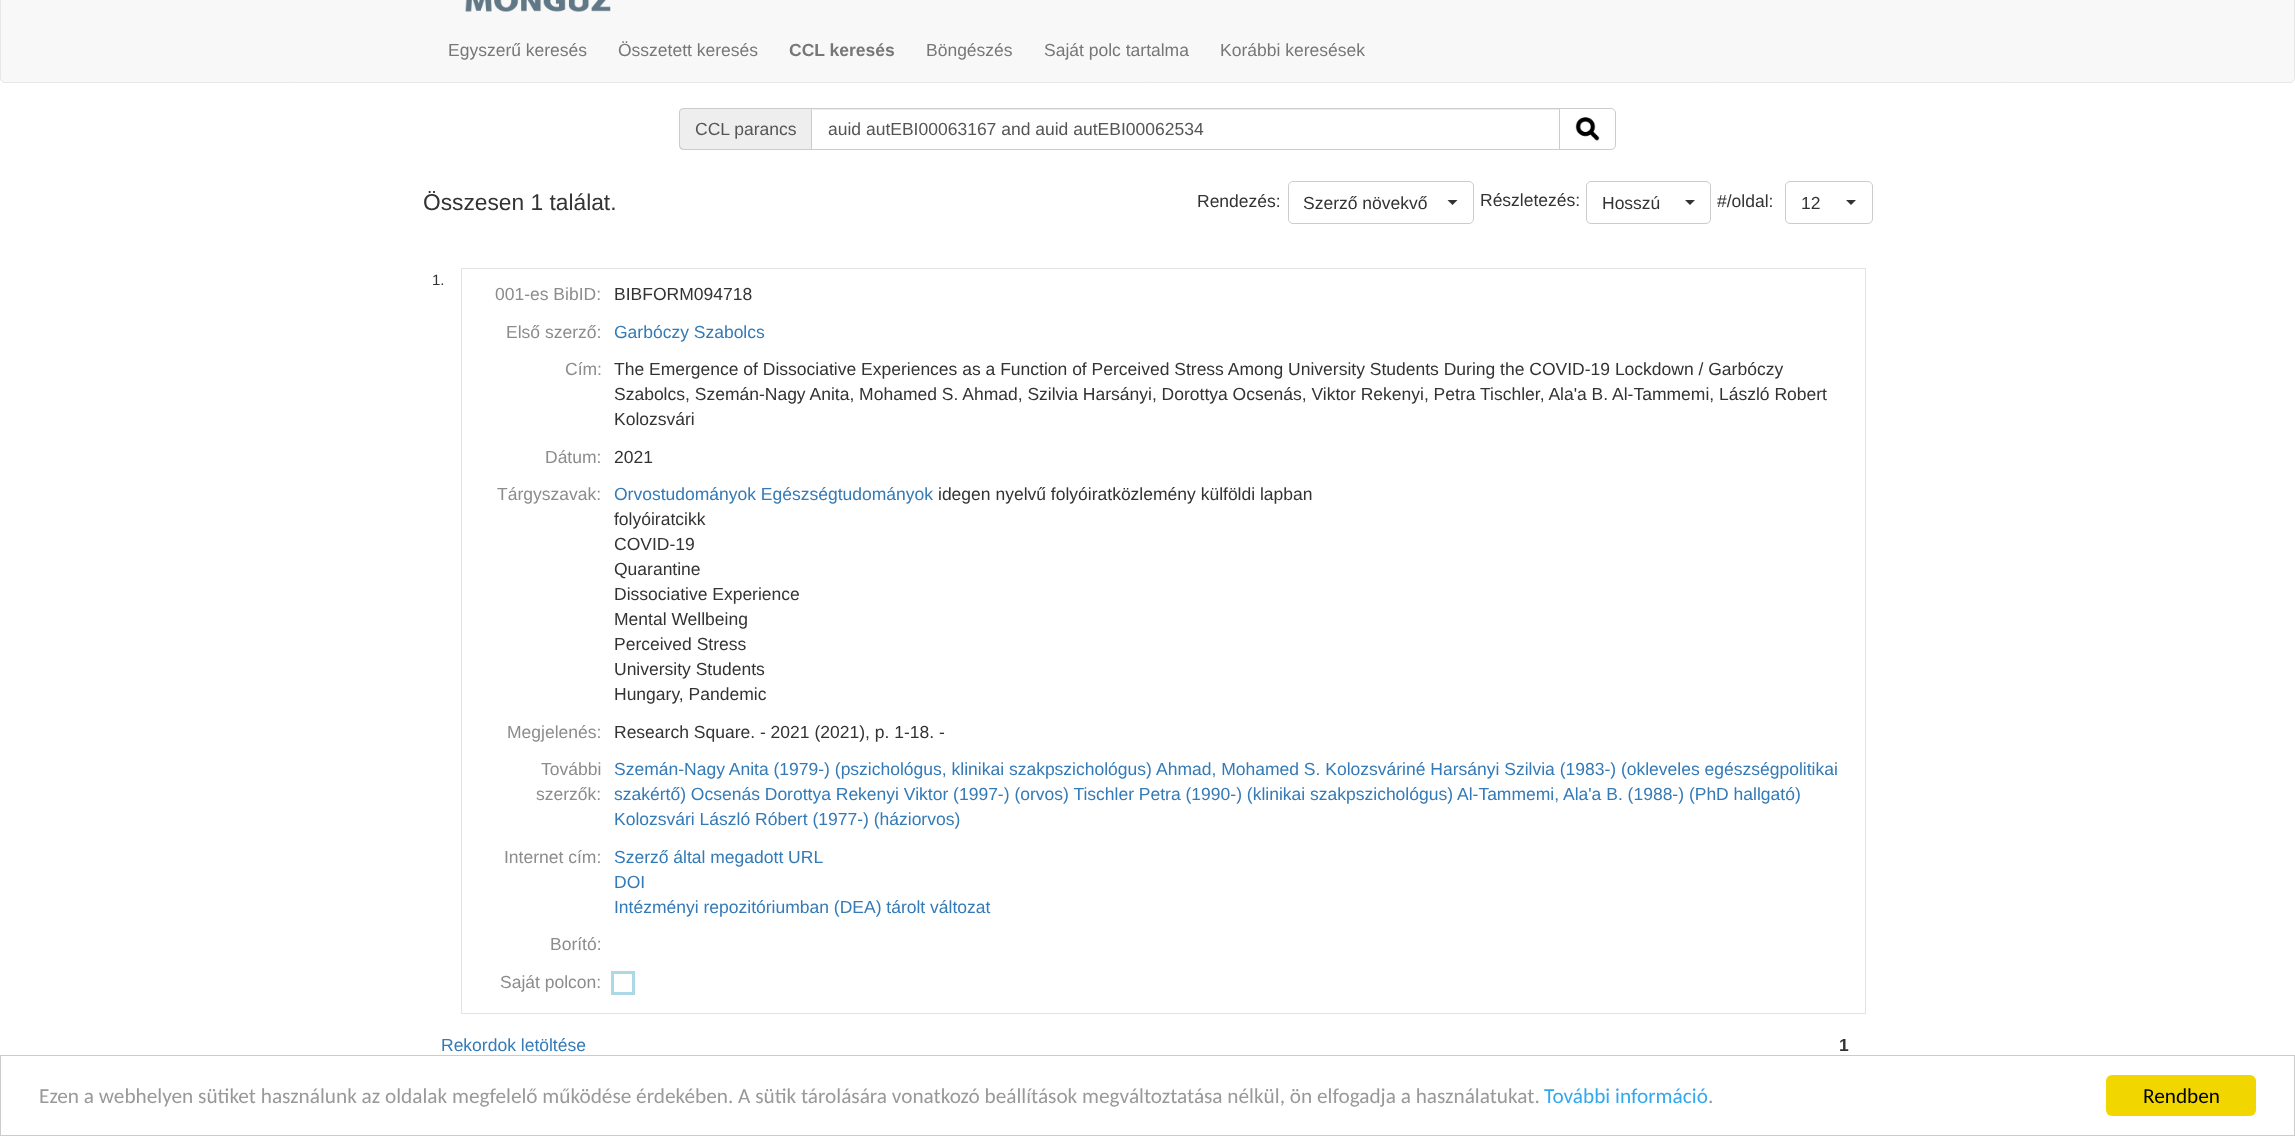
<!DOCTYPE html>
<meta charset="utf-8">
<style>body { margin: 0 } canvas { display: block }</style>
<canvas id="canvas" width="2295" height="1136"></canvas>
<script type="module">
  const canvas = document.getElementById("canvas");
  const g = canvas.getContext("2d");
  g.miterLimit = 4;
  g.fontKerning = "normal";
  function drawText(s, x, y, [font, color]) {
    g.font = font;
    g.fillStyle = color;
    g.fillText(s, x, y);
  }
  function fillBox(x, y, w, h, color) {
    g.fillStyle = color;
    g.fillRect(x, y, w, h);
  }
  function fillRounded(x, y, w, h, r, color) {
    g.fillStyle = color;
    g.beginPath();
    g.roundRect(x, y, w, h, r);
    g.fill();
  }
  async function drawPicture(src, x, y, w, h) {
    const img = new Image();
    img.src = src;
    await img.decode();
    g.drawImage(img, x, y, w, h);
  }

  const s1 = ["17.5px Liberation Sans", "#777777"];
  const s2 = ["bold 17.5px Liberation Sans", "#777777"];
  const s3 = ["17.5px Liberation Sans", "#555555"];
  const s4 = ["22.75px Liberation Sans", "#333333"];
  const s5 = ["17.5px Liberation Sans", "#333333"];
  const s6 = ["15px Liberation Sans", "#333333"];
  const s7 = ["17.5px Liberation Sans", "#8C8C8C"];
  const s8 = ["17.5px Liberation Sans", "#337AB7"];
  const s9 = ["bold 17.5px Liberation Sans", "#333333"];
  const s10 = ["21.25px Carlito", "#999999"];
  const s11 = ["21.25px Carlito", "#31A8F0"];
  const s12 = ["21.25px Carlito", "#000000"];

  fillBox(0, 0, 2295, 1136, "#FFFFFF");
  g.fillStyle = "#F8F8F8";
  g.beginPath();
  g.roundRect(0.5, -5.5, 2294, 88, 4.5);
  g.fill();
  g.strokeStyle = "#E7E7E7";
  g.stroke();
  await drawPicture("pic1.png", 465, 0, 146, 12);
  drawText("Egyszerű keresés", 448, 56, s1);
  drawText("Összetett keresés", 618, 56, s1);
  drawText("CCL keresés", 789, 56, s2);
  drawText("Böngészés", 926, 56, s1);
  drawText("Saját polc tartalma", 1044, 56, s1);
  drawText("Korábbi keresések", 1220, 56, s1);
  g.fillStyle = "#EEEEEE";
  g.beginPath();
  g.roundRect(679, 108, 132, 42, [5, 0, 0, 5]);
  g.fill();
  g.fillStyle = "#CCCCCC";
  g.beginPath();
  g.moveTo(684, 108);
  g.lineTo(811, 108);
  g.lineTo(811, 150);
  g.lineTo(684, 150);
  g.bezierCurveTo(681, 150, 679, 148, 679, 145);
  g.lineTo(679, 112);
  g.bezierCurveTo(679, 110, 681, 108, 684, 108);
  g.closePath();
  g.moveTo(684, 109);
  g.lineTo(811, 109);
  g.lineTo(811, 149);
  g.lineTo(684, 149);
  g.bezierCurveTo(682, 149, 680, 147, 680, 145);
  g.lineTo(680, 112);
  g.bezierCurveTo(680, 110, 682, 109, 684, 109);
  g.closePath();
  g.fill("evenodd");
  drawText("CCL parancs", 695, 135, s3);
  fillBox(813, 109, 746, 1, "#ECECEC");
  g.strokeStyle = "#CCCCCC";
  g.strokeRect(811.5, 108.5, 748, 41);
  drawText("auid autEBI00063167 and auid autEBI00062534", 828, 135, s3);
  g.fillStyle = "#FFFFFF";
  g.beginPath();
  g.roundRect(1559.5, 108.5, 56, 41, [0, 4.5, 4.5, 0]);
  g.fill();
  g.stroke();
  await drawPicture("pic2.png", 1575, 117, 25, 24);
  drawText("Összesen 1 találat.", 423, 210, s4);
  drawText("Rendezés:", 1197, 207, s5);
  g.beginPath();
  g.roundRect(1288.5, 181.5, 185, 42, 4.5);
  g.stroke();
  drawText("Szerző növekvő", 1303, 209, s5);
  g.beginPath();
  g.moveTo(1447.5, 200);
  g.lineTo(1457.5, 200);
  g.lineTo(1452.5, 205);
  g.closePath();
  g.fill();
  drawText("Részletezés:", 1480, 206, s5);
  g.beginPath();
  g.roundRect(1586.5, 181.5, 124, 42, 4.5);
  g.stroke();
  drawText("Hosszú", 1602, 209, s5);
  g.beginPath();
  g.moveTo(1685, 200);
  g.lineTo(1695, 200);
  g.lineTo(1690, 205);
  g.closePath();
  g.fill();
  drawText("#/oldal:", 1717, 207, s5);
  g.beginPath();
  g.roundRect(1785.5, 181.5, 87, 42, 4.5);
  g.stroke();
  drawText("12", 1801, 209, s5);
  g.beginPath();
  g.moveTo(1846, 200);
  g.lineTo(1856, 200);
  g.lineTo(1851, 205);
  g.closePath();
  g.fill();
  drawText("1.", 432, 285, s6);
  fillBox(461, 268, 1405, 1, "#E3E3E3");
  fillBox(1865, 268, 1, 746, "#E3E3E3");
  fillBox(461, 1013, 1405, 1, "#E3E3E3");
  fillBox(461, 268, 1, 746, "#E3E3E3");
  drawText("001-es BibID:", 495, 300, s7);
  drawText("BIBFORM094718", 614, 300, s5);
  drawText("Első szerző:", 506, 338, s7);
  drawText("Garbóczy Szabolcs", 614, 338, s8);
  drawText("Cím:", 565, 375, s7);
  drawText("The Emergence of Dissociative Experiences as a Function of Perceived Stress Among University Students During the COVID-19 Lockdown / Garbóczy", 614, 375, s5);
  drawText("Szabolcs, Szemán-Nagy Anita, Mohamed S. Ahmad, Szilvia Harsányi, Dorottya Ocsenás, Viktor Rekenyi, Petra Tischler, Ala'a B. Al-Tammemi, László Robert", 614, 400, s5);
  drawText("Kolozsvári", 614, 425, s5);
  drawText("Dátum:", 545, 463, s7);
  drawText("2021", 614, 463, s5);
  drawText("Tárgyszavak:", 497, 500, s7);
  drawText("Orvostudományok Egészségtudományok", 614, 500, s8);
  drawText("idegen nyelvű folyóiratközlemény külföldi lapban", 938, 500, s5);
  drawText("folyóiratcikk", 614, 525, s5);
  drawText("COVID-19", 614, 550, s5);
  drawText("Quarantine", 614, 575, s5);
  drawText("Dissociative Experience", 614, 600, s5);
  drawText("Mental Wellbeing", 614, 625, s5);
  drawText("Perceived Stress", 614, 650, s5);
  drawText("University Students", 614, 675, s5);
  drawText("Hungary, Pandemic", 614, 700, s5);
  drawText("Megjelenés:", 507, 738, s7);
  drawText("Research Square. - 2021 (2021), p. 1-18. -", 614, 738, s5);
  drawText("További", 541, 775, s7);
  drawText("szerzők:", 536, 800, s7);
  drawText("Szemán-Nagy Anita (1979-) (pszichológus, klinikai szakpszichológus)", 614, 775, s8);
  drawText("Ahmad, Mohamed S. Kolozsváriné Harsányi Szilvia (1983-) (okleveles egészségpolitikai", 1156, 775, s8);
  drawText("szakértő) Ocsenás Dorottya Rekenyi Viktor (1997-) (orvos) Tischler Petra (1990-) (klinikai szakpszichológus)", 614, 800, s8);
  drawText("Al-Tammemi, Ala'a B. (1988-) (PhD hallgató)", 1457, 800, s8);
  drawText("Kolozsvári László Róbert (1977-) (háziorvos)", 614, 825, s8);
  drawText("Internet cím:", 504, 863, s7);
  drawText("Szerző által megadott URL", 614, 863, s8);
  drawText("DOI", 614, 888, s8);
  drawText("Intézményi repozitóriumban (DEA) tárolt változat", 614, 913, s8);
  drawText("Borító:", 550, 950, s7);
  drawText("Saját polcon:", 500, 988, s7);
  g.strokeStyle = "#ADD8E6";
  g.lineWidth = 3;
  g.strokeRect(612.5, 972.5, 21, 21);
  drawText("Rekordok letöltése", 441, 1051, s8);
  drawText("1", 1839, 1051, s9);
  g.strokeStyle = "#CCCCCC";
  g.lineWidth = 1;
  g.strokeRect(0.5, 1055.5, 2294, 80);
  drawText("Ezen a webhelyen sütiket használunk az oldalak megfelelő működése érdekében. A sütik tárolására vonatkozó beállítások megváltoztatása nélkül, ön elfogadja a használatukat.", 39, 1103, s10);
  drawText("További információ", 1544, 1103, s11);
  drawText(".", 1708, 1103, s10);
  fillRounded(2106, 1075, 150, 41, 6, "#F1D600");
  drawText("Rendben", 2143, 1103, s12);
</script>
